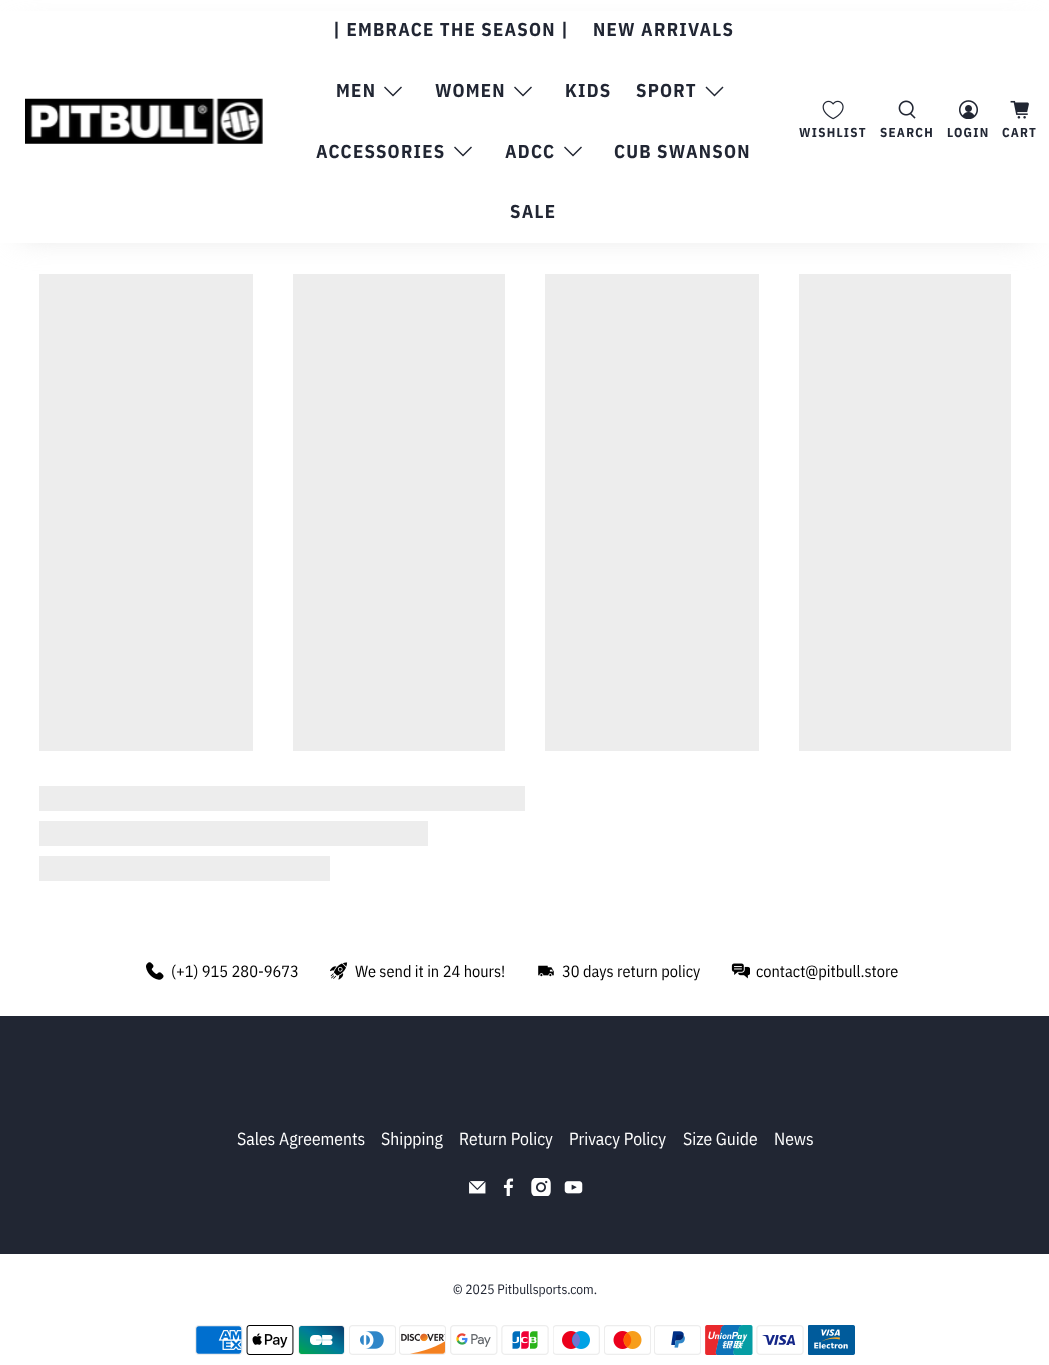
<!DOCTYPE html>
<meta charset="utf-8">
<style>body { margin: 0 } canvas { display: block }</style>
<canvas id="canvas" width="1049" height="1365"></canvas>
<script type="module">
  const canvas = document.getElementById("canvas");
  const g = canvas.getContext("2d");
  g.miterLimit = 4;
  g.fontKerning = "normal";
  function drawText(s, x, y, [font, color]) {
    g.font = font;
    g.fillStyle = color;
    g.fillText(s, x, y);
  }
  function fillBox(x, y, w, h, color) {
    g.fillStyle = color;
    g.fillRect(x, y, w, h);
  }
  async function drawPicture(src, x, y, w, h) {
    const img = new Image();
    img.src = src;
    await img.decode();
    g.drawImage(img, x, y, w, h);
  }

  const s1 = ["bold 18.75px IBM Plex Sans Condensed", "#212633"];
  const s2 = ["bold 13px IBM Plex Sans Condensed", "#212633"];
  const s3 = ["16.25px IBM Plex Sans Condensed", "#000000"];
  const s4 = ["17.5px IBM Plex Sans Condensed", "#FFFFFF"];
  const s5 = ["13.5px IBM Plex Sans Condensed", "#212633"];

  fillBox(0, 0, 1049, 1365, "#FFFFFF");
  fillBox(39, 274, 214, 477, "#EDEDED");
  fillBox(293, 274, 212, 477, "#EDEDED");
  fillBox(545, 274, 214, 477, "#EDEDED");
  fillBox(799, 274, 212, 477, "#EDEDED");
  g.fillStyle = "#DDDDDD";
  g.filter = "blur(15px)";
  g.beginPath();
  g.rect(20, 33, 1010, 202);
  g.fill();
  g.filter = "none";
  fillBox(0, 11, 1049, 232, "#FFFFFF");
  await drawPicture("pic1.png", 25, 98, 238, 46);
  g.letterSpacing = "1.25px";
  drawText("| EMBRACE THE SEASON |", 333, 36, s1);
  drawText("NEW ARRIVALS", 593, 36, s1);
  drawText("MEN", 336, 97, s1);
  g.beginPath();
  g.moveTo(393, 96.5);
  g.lineTo(384, 87.5);
  g.lineTo(385, 86.5);
  g.lineTo(393, 94.5);
  g.lineTo(401, 86.5);
  g.lineTo(402, 87.5);
  g.closePath();
  g.fill();
  drawText("WOMEN", 435, 97, s1);
  g.beginPath();
  g.moveTo(523, 96.5);
  g.lineTo(514, 87.5);
  g.lineTo(515, 86.5);
  g.lineTo(523, 94.5);
  g.lineTo(531, 86.5);
  g.lineTo(532, 87.5);
  g.closePath();
  g.fill();
  drawText("KIDS", 565, 97, s1);
  drawText("SPORT", 636, 97, s1);
  g.beginPath();
  g.moveTo(714.5, 96.5);
  g.lineTo(705.5, 87.5);
  g.lineTo(706.5, 86.5);
  g.lineTo(714.5, 94.5);
  g.lineTo(722.5, 86.5);
  g.lineTo(723.5, 87.5);
  g.closePath();
  g.fill();
  drawText("ACCESSORIES", 316, 158, s1);
  g.beginPath();
  g.moveTo(463, 156.5);
  g.lineTo(454, 147.5);
  g.lineTo(455, 146.5);
  g.lineTo(463, 154.5);
  g.lineTo(471, 146.5);
  g.lineTo(472, 147.5);
  g.closePath();
  g.fill();
  drawText("ADCC", 505, 158, s1);
  g.beginPath();
  g.moveTo(573, 156.5);
  g.lineTo(564, 147.5);
  g.lineTo(565, 146.5);
  g.lineTo(573, 154.5);
  g.lineTo(581, 146.5);
  g.lineTo(582, 147.5);
  g.closePath();
  g.fill();
  drawText("CUB SWANSON", 614, 158, s1);
  drawText("SALE", 510, 218, s1);
  await drawPicture("pic2.png", 822, 100, 22, 20);
  drawText("WISHLIST", 799, 137, s2);
  await drawPicture("pic3.png", 898, 100, 18, 19);
  drawText("SEARCH", 880, 137, s2);
  await drawPicture("pic4.png", 959, 100, 19, 19);
  drawText("LOGIN", 947, 137, s2);
  await drawPicture("pic5.png", 1010, 100, 19, 19);
  drawText("CART", 1002, 137, s2);
  fillBox(39, 786, 486, 25, "#EDEDED");
  fillBox(39, 821, 389, 25, "#EDEDED");
  fillBox(39, 856, 291, 25, "#EDEDED");
  await drawPicture("pic6.png", 146, 962, 18, 18);
  g.letterSpacing = "0px";
  drawText("(+1) 915 280-9673", 171, 977, s3);
  await drawPicture("pic7.png", 330, 962, 18, 18);
  drawText("We send it in 24 hours!", 355, 977, s3);
  await drawPicture("pic8.png", 538, 965, 16, 12);
  drawText("30 days return policy", 562, 977, s3);
  await drawPicture("pic9.png", 731, 963, 19, 16);
  drawText("contact@pitbull.store", 756, 977, s3);
  fillBox(0, 1016, 1049, 238, "#212633");
  drawText("Sales Agreements", 237, 1145, s4);
  drawText("Shipping", 381, 1145, s4);
  drawText("Return Policy", 459, 1145, s4);
  drawText("Privacy Policy", 569, 1145, s4);
  drawText("Size Guide", 683, 1145, s4);
  drawText("News", 774, 1145, s4);
  await drawPicture("pic10.png", 469, 1181, 17, 13);
  await drawPicture("pic11.png", 503, 1178, 11, 18);
  await drawPicture("pic12.png", 531, 1178, 20, 18);
  await drawPicture("pic13.png", 564, 1181, 19, 13);
  drawText("© 2025 Pitbullsports.com.", 453, 1294, s5);
  await drawPicture("pic14.png", 195, 1325, 48, 30);
  await drawPicture("pic15.png", 246, 1325, 48, 30);
  await drawPicture("pic16.png", 298, 1325, 47, 30);
  await drawPicture("pic17.png", 349, 1325, 47, 30);
  await drawPicture("pic18.png", 399, 1325, 47, 30);
  await drawPicture("pic19.png", 450, 1325, 48, 30);
  await drawPicture("pic20.png", 501, 1325, 48, 30);
  await drawPicture("pic21.png", 553, 1325, 47, 30);
  await drawPicture("pic22.png", 604, 1325, 47, 30);
  await drawPicture("pic23.png", 654, 1325, 47, 30);
  await drawPicture("pic24.png", 705, 1325, 48, 30);
  await drawPicture("pic25.png", 756, 1325, 48, 30);
  await drawPicture("pic26.png", 808, 1325, 47, 30);
</script>
